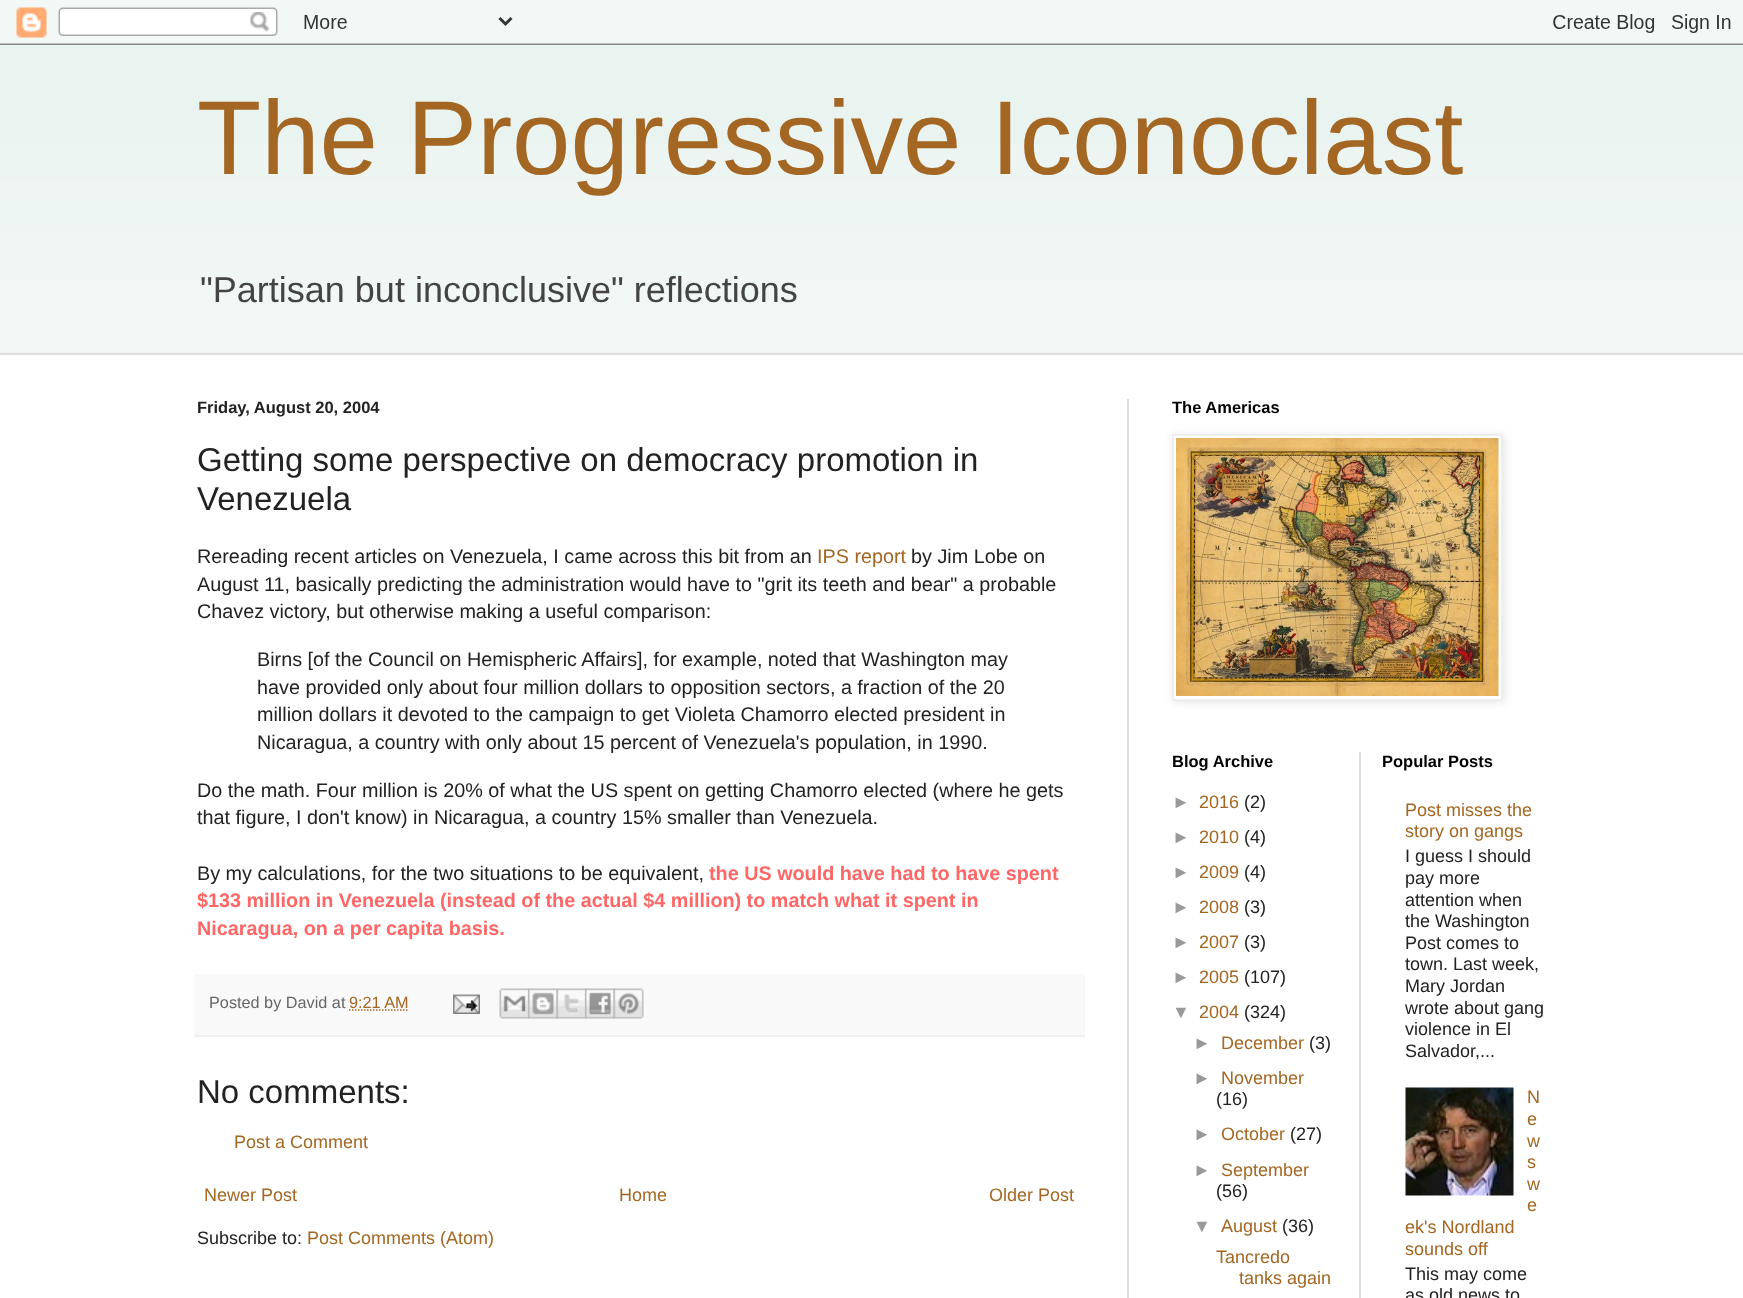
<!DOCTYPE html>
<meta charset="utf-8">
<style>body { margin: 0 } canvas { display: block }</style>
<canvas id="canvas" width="1743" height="1298"></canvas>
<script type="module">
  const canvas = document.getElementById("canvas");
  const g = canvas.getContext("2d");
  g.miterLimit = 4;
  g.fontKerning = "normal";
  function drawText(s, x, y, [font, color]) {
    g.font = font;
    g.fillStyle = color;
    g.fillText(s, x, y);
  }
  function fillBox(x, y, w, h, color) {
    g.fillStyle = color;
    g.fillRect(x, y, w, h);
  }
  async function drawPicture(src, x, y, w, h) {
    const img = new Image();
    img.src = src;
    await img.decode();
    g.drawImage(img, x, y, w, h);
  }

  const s1 = ["105px Liberation Sans", "#A36723"];
  const s2 = ["36px Liberation Sans", "#444444"];
  const s3 = ["bold 16.5px Liberation Sans", "#222222"];
  const s4 = ["33px Liberation Sans", "#222222"];
  const s5 = ["19.8px Liberation Sans", "#222222"];
  const s6 = ["19.8px Liberation Sans", "#A36723"];
  const s7 = ["bold 19.8px Liberation Sans", "#FF6666"];
  const s8 = ["16.25px Liberation Sans", "#666666"];
  const s9 = ["16.25px Liberation Sans", "#A36723"];
  const s10 = ["18px Liberation Sans", "#A36723"];
  const s11 = ["18px Liberation Sans", "#222222"];
  const s12 = ["bold 16.5px Liberation Sans", "#000000"];
  const s13 = ["18px Liberation Sans", "#999999"];

  fillBox(0, 0, 1743, 1298, "#E9F3EF");
  await drawPicture("pic1.png", 0, 0, 1743, 45);
  await drawPicture("pic10.png", 0, 144, 1743, 209);
  drawText("The Progressive Iconoclast", 197, 174, s1);
  drawText("\"Partisan but inconclusive\" reflections", 200, 302, s2);
  fillBox(0, 355, 1743, 943, "#FFFFFF");
  fillBox(0, 353, 1743, 2, "#DDDDDD");
  fillBox(1127, 399, 2, 899, "#DDDDDD");
  drawText("Friday, August 20, 2004", 197, 413, s3);
  drawText("Getting some perspective on democracy promotion in", 197, 471, s4);
  drawText("Venezuela", 197, 510, s4);
  drawText("Rereading recent articles on Venezuela, I came across this bit from an", 197, 563, s5);
  drawText("IPS report", 817, 563, s6);
  drawText("by Jim Lobe on", 911, 563, s5);
  drawText("August 11, basically predicting the administration would have to \"grit its teeth and bear\" a probable", 197, 591, s5);
  drawText("Chavez victory, but otherwise making a useful comparison:", 197, 618, s5);
  drawText("Birns [of the Council on Hemispheric Affairs], for example, noted that Washington may", 257, 666, s5);
  drawText("have provided only about four million dollars to opposition sectors, a fraction of the 20", 257, 694, s5);
  drawText("million dollars it devoted to the campaign to get Violeta Chamorro elected president in", 257, 721, s5);
  drawText("Nicaragua, a country with only about 15 percent of Venezuela's population, in 1990.", 257, 749, s5);
  drawText("Do the math. Four million is 20% of what the US spent on getting Chamorro elected (where he gets", 197, 797, s5);
  drawText("that figure, I don't know) in Nicaragua, a country 15% smaller than Venezuela.", 197, 824, s5);
  drawText("By my calculations, for the two situations to be equivalent,", 197, 880, s5);
  drawText("the US would have had to have spent", 709, 880, s7);
  drawText("$133 million in Venezuela (instead of the actual $4 million) to match what it spent in", 197, 907, s7);
  drawText("Nicaragua, on a per capita basis.", 197, 935, s7);
  fillBox(194, 974, 891, 61, "#F9F9F9");
  fillBox(194, 1035, 891, 2, "#EEEEEE");
  drawText("Posted by David at", 209, 1008, s8);
  drawText("9:21 AM", 349, 1008, s9);
  g.beginPath();
  g.moveTo(349, 1010);
  g.lineTo(408.5, 1010);
  g.strokeStyle = "#A36723";
  g.lineWidth = 1.5;
  g.setLineDash([1.5, 1.5]);
  g.stroke();
  await drawPicture("pic2.png", 453, 994, 27, 20);
  await drawPicture("pic3.png", 499, 988, 31, 31);
  await drawPicture("pic4.png", 528, 988, 30, 31);
  await drawPicture("pic5.png", 556, 988, 31, 31);
  await drawPicture("pic6.png", 585, 988, 30, 31);
  await drawPicture("pic7.png", 613, 988, 31, 31);
  drawText("No comments:", 197, 1103, s4);
  drawText("Post a Comment", 234, 1148, s10);
  drawText("Newer Post", 204, 1201, s10);
  drawText("Home", 619, 1201, s10);
  drawText("Older Post", 989, 1201, s10);
  drawText("Subscribe to:", 197, 1244, s11);
  drawText("Post Comments (Atom)", 307, 1244, s10);
  drawText("The Americas", 1172, 413, s12);
  g.fillStyle = "rgba(0, 0, 0, 0.1)";
  g.filter = "blur(4px)";
  g.beginPath();
  g.rect(1173, 435, 332, 267);
  g.fill();
  g.filter = "none";
  g.fillStyle = "#FFFFFF";
  g.beginPath();
  g.rect(1173, 435, 329, 265);
  g.fill();
  g.strokeStyle = "#EEEEEE";
  g.lineWidth = 2;
  g.setLineDash([]);
  g.stroke();
  await drawPicture("pic8.png", 1176, 438, 323, 258);
  drawText("Blog Archive", 1172, 767, s12);
  drawText("►", 1172, 808, s13);
  drawText("2016", 1199, 808, s10);
  drawText("(2)", 1244, 808, s11);
  drawText("►", 1172, 843, s13);
  drawText("2010", 1199, 843, s10);
  drawText("(4)", 1244, 843, s11);
  drawText("►", 1172, 878, s13);
  drawText("2009", 1199, 878, s10);
  drawText("(4)", 1244, 878, s11);
  drawText("►", 1172, 913, s13);
  drawText("2008", 1199, 913, s10);
  drawText("(3)", 1244, 913, s11);
  drawText("►", 1172, 948, s13);
  drawText("2007", 1199, 948, s10);
  drawText("(3)", 1244, 948, s11);
  drawText("►", 1172, 983, s13);
  drawText("2005", 1199, 983, s10);
  drawText("(107)", 1244, 983, s11);
  drawText("▼", 1172, 1018, s13);
  drawText("2004", 1199, 1018, s10);
  drawText("(324)", 1244, 1018, s11);
  drawText("►", 1193, 1049, s13);
  drawText("December", 1221, 1049, s10);
  drawText("(3)", 1309, 1049, s11);
  drawText("►", 1193, 1084, s13);
  drawText("November", 1221, 1084, s10);
  drawText("(16)", 1216, 1105, s11);
  drawText("►", 1193, 1140, s13);
  drawText("October", 1221, 1140, s10);
  drawText("(27)", 1290, 1140, s11);
  drawText("►", 1193, 1176, s13);
  drawText("September", 1221, 1176, s10);
  drawText("(56)", 1216, 1197, s11);
  drawText("▼", 1193, 1232, s13);
  drawText("August", 1221, 1232, s10);
  drawText("(36)", 1282, 1232, s11);
  drawText("Tancredo", 1216, 1263, s10);
  drawText("tanks again", 1239, 1284, s10);
  fillBox(1359, 752, 2, 546, "#DDDDDD");
  drawText("Popular Posts", 1382, 767, s12);
  drawText("Post misses the", 1405, 816, s10);
  drawText("story on gangs", 1405, 837, s10);
  drawText("I guess I should", 1405, 862, s11);
  drawText("pay more", 1405, 884, s11);
  drawText("attention when", 1405, 906, s11);
  drawText("the Washington", 1405, 927, s11);
  drawText("Post comes to", 1405, 949, s11);
  drawText("town. Last week,", 1405, 970, s11);
  drawText("Mary Jordan", 1405, 992, s11);
  drawText("wrote about gang", 1405, 1014, s11);
  drawText("violence in El", 1405, 1035, s11);
  drawText("Salvador,...", 1405, 1057, s11);
  await drawPicture("pic9.png", 1405, 1087, 109, 109);
  drawText("N", 1527, 1103, s10);
  drawText("e", 1527, 1125, s10);
  drawText("w", 1527, 1147, s10);
  drawText("s", 1527, 1168, s10);
  drawText("w", 1527, 1190, s10);
  drawText("e", 1527, 1211, s10);
  drawText("ek's Nordland", 1405, 1233, s10);
  drawText("sounds off", 1405, 1255, s10);
  drawText("This may come", 1405, 1280, s11);
  drawText("as old news to", 1405, 1301, s11);
</script>
